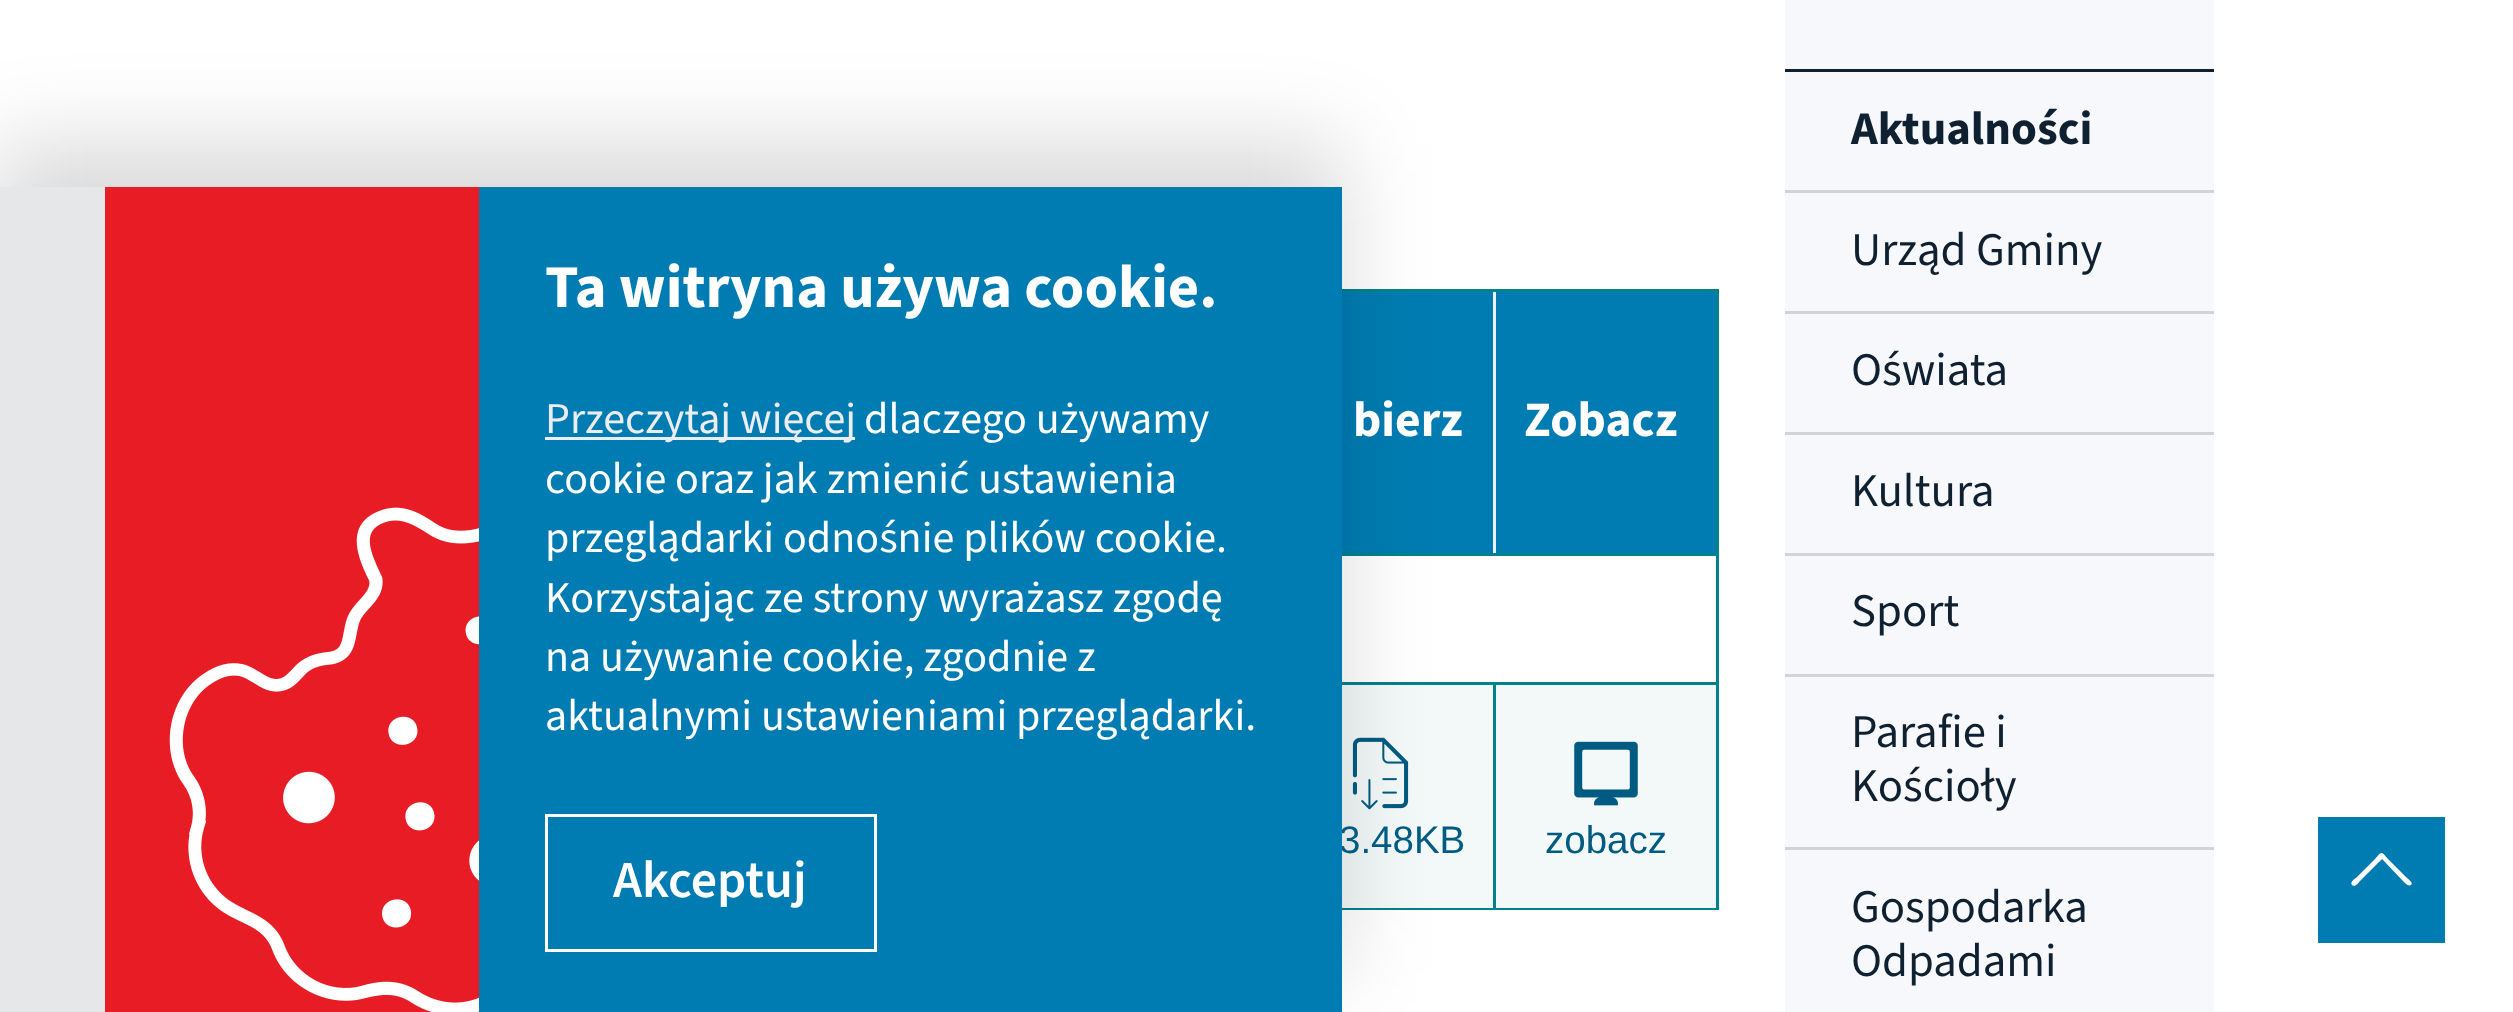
<!DOCTYPE html>
<meta charset="utf-8">
<style>body { margin: 0 } canvas { display: block }</style>
<canvas id="canvas" width="2513" height="1012"></canvas>
<script type="module">
  const canvas = document.getElementById("canvas");
  const g = canvas.getContext("2d");
  g.miterLimit = 4;
  g.fontKerning = "normal";
  function drawText(s, x, y, [font, color]) {
    g.font = font;
    g.fillStyle = color;
    g.fillText(s, x, y);
  }
  function fillBox(x, y, w, h, color) {
    g.fillStyle = color;
    g.fillRect(x, y, w, h);
  }
  async function drawPicture(src, x, y, w, h) {
    const img = new Image();
    img.src = src;
    await img.decode();
    g.drawImage(img, x, y, w, h);
  }

  const s1 = ["38.5px Liberation Sans", "#005B82"];
  const s2 = ["bold 60.5px 'Source Sans 3'", "#FFFFFF"];
  const s3 = ["44px 'Source Sans 3'", "#ECEDF0"];
  const s4 = ["44px 'Source Sans 3'", "#FFFFFF"];
  const s5 = ["600 52px 'Source Sans 3'", "#FFFFFF"];
  const s6 = ["bold 49.5px 'Source Sans 3'", "#FFFFFF"];
  const s7 = ["bold 46.75px 'Source Sans 3'", "#0F2031"];
  const s8 = ["46.75px 'Source Sans 3'", "#0F2031"];

  fillBox(0, 0, 2513, 1012, "#FFFFFF");
  fillBox(1342, 289, 377, 621, "#00828E");
  fillBox(1342, 292, 151, 261, "#007CB2");
  fillBox(1342, 556, 374, 126, "#FFFFFF");
  fillBox(1342, 685, 151, 223, "#F3F9F8");
  await drawPicture("pic2.png", 1352, 737, 57, 73);
  g.fillStyle = "rgba(0, 0, 0, 0.15)";
  g.filter = "blur(44px)";
  g.beginPath();
  g.rect(-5, 143, 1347, 831);
  g.fill();
  g.filter = "none";
  fillBox(0, 187, 105, 825, "#E6E7E8");
  fillBox(105, 187, 374, 825, "#E81C24");
  drawText("3.48KB", 1339, 853, s1);
  fillBox(479, 187, 863, 825, "#007CB2");
  drawText("Ta witryna używa cookie.", 545, 307, s2);
  await drawPicture("pic1.png", 169, 507, 310, 505);
  fillBox(545, 437, 310, 3, "#ECEDF0");
  drawText("Przeczytaj więcej", 545, 433, s3);
  drawText("dlaczego używamy", 864, 433, s4);
  drawText("cookie oraz jak zmienić ustawienia", 545, 493, s4);
  drawText("przeglądarki odnośnie plików cookie.", 545, 552, s4);
  drawText("Korzystając ze strony wyrażasz zgodę", 545, 612, s4);
  drawText("na używanie cookie, zgodnie z", 545, 671, s4);
  drawText("aktualnymi ustawieniami przeglądarki.", 545, 730, s4);
  g.strokeStyle = "#FFFFFF";
  g.lineWidth = 3;
  g.strokeRect(546.5, 815.5, 329, 135);
  drawText("Akceptuj", 613, 897, s5);
  fillBox(1493, 292, 3, 261, "#EEF1F9");
  drawText("bierz", 1353, 436, s6);
  fillBox(1496, 292, 220, 261, "#007CB2");
  drawText("Zobacz", 1524, 436, s6);
  fillBox(1496, 685, 220, 223, "#F3F9F8");
  await drawPicture("pic3.png", 1574, 741, 64, 65);
  drawText("zobacz", 1545, 853, s1);
  fillBox(1785, 0, 429, 1012, "#F7F8FB");
  fillBox(1785, 69, 429, 3, "#0F2031");
  drawText("Aktualności", 1851, 144, s7);
  fillBox(1785, 190, 429, 3, "#D2D3D5");
  drawText("Urząd Gminy", 1851, 265, s8);
  fillBox(1785, 311, 429, 3, "#D2D3D5");
  drawText("Oświata", 1851, 385, s8);
  fillBox(1785, 432, 429, 3, "#D2D3D5");
  drawText("Kultura", 1851, 506, s8);
  fillBox(1785, 553, 429, 3, "#D2D3D5");
  drawText("Sport", 1851, 626, s8);
  fillBox(1785, 674, 429, 3, "#D2D3D5");
  drawText("Parafie i", 1851, 747, s8);
  drawText("Kościoły", 1851, 801, s8);
  fillBox(1785, 847, 429, 3, "#D2D3D5");
  drawText("Gospodarka", 1851, 922, s8);
  drawText("Odpadami", 1851, 976, s8);
  fillBox(2318, 817, 127, 126, "#007CB2");
  g.fillStyle = "#FFFFFF";
  g.beginPath();
  g.moveTo(2352, 885);
  g.bezierCurveTo(2349, 882, 2356, 878, 2357, 877);
  g.lineTo(2375, 859);
  g.bezierCurveTo(2382, 851, 2381, 851, 2388, 859);
  g.lineTo(2406, 877);
  g.bezierCurveTo(2407, 878, 2414, 883, 2411, 885);
  g.bezierCurveTo(2408, 887, 2404, 882, 2403, 881);
  g.lineTo(2382, 859);
  g.lineTo(2360, 881);
  g.bezierCurveTo(2359, 882, 2355, 888, 2352, 885);
  g.closePath();
  g.fill();
</script>
